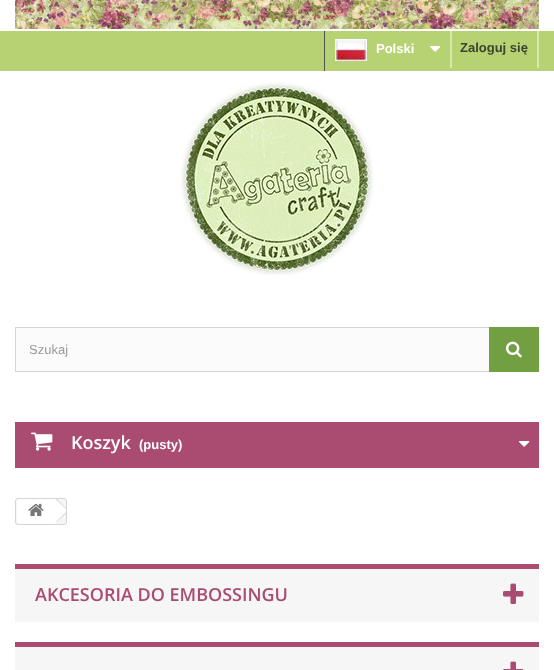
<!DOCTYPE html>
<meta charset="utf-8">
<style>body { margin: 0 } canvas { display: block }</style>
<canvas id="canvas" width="554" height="670"></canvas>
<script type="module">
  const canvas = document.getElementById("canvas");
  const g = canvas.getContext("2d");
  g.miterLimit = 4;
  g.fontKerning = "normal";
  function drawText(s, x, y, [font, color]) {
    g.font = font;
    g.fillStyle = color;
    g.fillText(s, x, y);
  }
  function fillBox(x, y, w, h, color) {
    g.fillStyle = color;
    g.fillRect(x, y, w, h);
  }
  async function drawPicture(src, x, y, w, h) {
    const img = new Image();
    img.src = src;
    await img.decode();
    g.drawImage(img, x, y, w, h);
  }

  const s1 = ["bold 13px Liberation Sans", "#FFFFFF"];
  const s2 = ["bold 13px Liberation Sans", "#3C4331"];
  const s3 = ["13px Liberation Sans", "#999999"];
  const s4 = ["600 18px Open Sans", "#FFFFFF"];
  const s5 = ["600 18px Open Sans", "#AA4C71"];

  fillBox(0, 0, 554, 670, "#FFFFFF");
  await drawPicture("pic1.png", 15, 0, 524, 29);
  fillBox(0, 31, 554, 40, "#B7D272");
  fillBox(324, 31, 1, 40, "#515151");
  await drawPicture("pic2.png", 335, 39, 32, 22);
  drawText("Polski", 376, 53, s1);
  await drawPicture("pic3.png", 430, 46, 11, 6);
  fillBox(537, 31, 2, 37, "#D7E8AB");
  fillBox(450, 31, 2, 37, "#D7E8AB");
  drawText("Zaloguj się", 460, 52, s2);
  await drawPicture("pic4.png", 179, 81, 195, 195);
  fillBox(16, 328, 473, 43, "#FBFBFB");
  g.strokeStyle = "#D6D4D4";
  g.strokeRect(15.5, 327.5, 523, 44);
  drawText("Szukaj", 29, 354, s3);
  fillBox(489, 327, 50, 45, "#719F41");
  await drawPicture("pic5.png", 506, 341, 16, 17);
  fillBox(15, 422, 524, 46, "#AA4C71");
  await drawPicture("pic6.png", 31, 432, 22, 19);
  drawText("Koszyk", 71, 449, s4);
  drawText("(pusty)", 139, 449, s1);
  await drawPicture("pic7.png", 519, 441, 11, 6);
  g.fillStyle = "#F6F6F6";
  g.beginPath();
  g.roundRect(15.5, 498.5, 51, 26, 2.5);
  g.fill();
  g.stroke();
  g.fillStyle = "#FFFFFF";
  g.beginPath();
  g.roundRect(17, 499, 38, 25, [3, 0, 0, 3]);
  g.fill();
  await drawPicture("pic8.png", 28, 503, 16, 13);
  g.beginPath();
  g.moveTo(57.5, 499.5);
  g.lineTo(57, 499);
  g.lineTo(55, 499);
  g.lineTo(44.5, 509);
  g.bezierCurveTo(42.5, 511.5, 48.5, 516, 49.5, 517);
  g.lineTo(53, 520.5);
  g.bezierCurveTo(56, 523.5, 56, 523.5, 59, 520.5);
  g.lineTo(66, 513.5);
  g.lineTo(66, 507.5);
  g.closePath();
  g.fill();
  g.fillStyle = "#D6D4D4";
  g.beginPath();
  g.moveTo(66, 509);
  g.lineTo(56, 499.5);
  g.lineTo(56, 499);
  g.lineTo(57, 499);
  g.lineTo(66, 508);
  g.closePath();
  g.moveTo(66, 512);
  g.lineTo(66, 513.5);
  g.lineTo(56.5, 522.5);
  g.lineTo(56, 522);
  g.closePath();
  g.fill();
  fillBox(15, 569, 524, 53, "#F6F6F6");
  fillBox(15, 564, 524, 5, "#AA4C71");
  drawText("AKCESORIA DO EMBOSSINGU", 35, 601, s5);
  await drawPicture("pic9.png", 503, 583, 21, 21);
  fillBox(15, 647, 524, 23, "#F6F6F6");
  fillBox(15, 642, 524, 5, "#AA4C71");
  await drawPicture("pic10.png", 503, 661, 21, 9);
</script>
